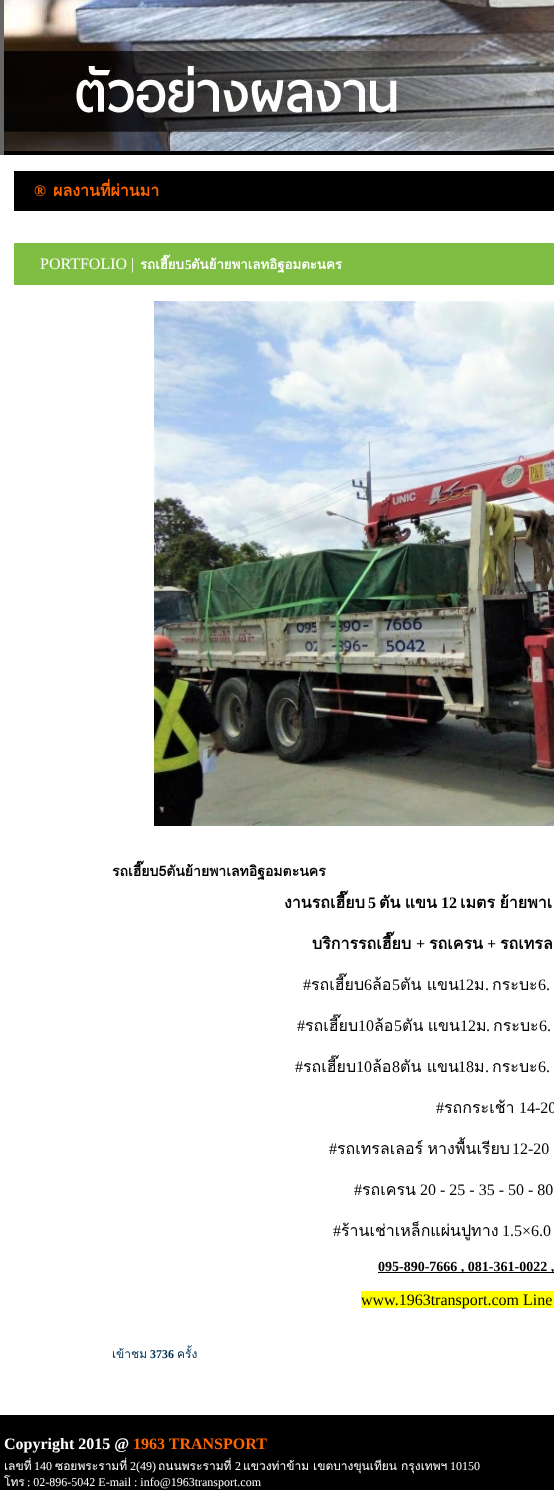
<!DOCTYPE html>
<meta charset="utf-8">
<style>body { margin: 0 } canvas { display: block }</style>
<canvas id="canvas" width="554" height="1490"></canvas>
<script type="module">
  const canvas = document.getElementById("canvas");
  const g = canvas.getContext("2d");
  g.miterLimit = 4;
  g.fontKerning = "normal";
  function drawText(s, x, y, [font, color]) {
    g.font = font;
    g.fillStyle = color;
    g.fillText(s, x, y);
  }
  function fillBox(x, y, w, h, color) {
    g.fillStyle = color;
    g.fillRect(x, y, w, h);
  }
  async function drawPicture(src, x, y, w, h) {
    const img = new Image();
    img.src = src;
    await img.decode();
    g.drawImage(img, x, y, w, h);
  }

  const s1 = ["bold 16px Liberation Serif", "#FF6600"];
  const s2 = ["bold 16px Loma", "#FF6600"];
  const s3 = ["16px Liberation Serif", "#FFFFFF"];
  const s4 = ["bold 13.25px Loma", "#FFFFFF"];
  const s5 = ["bold 13.25px Liberation Serif", "#FFFFFF"];
  const s6 = ["bold 14px Loma", "#000000"];
  const s7 = ["bold 16px Loma", "#000000"];
  const s8 = ["bold 16px Liberation Serif", "#000000"];
  const s9 = ["16px Liberation Serif", "#000000"];
  const s10 = ["16px Loma", "#000000"];
  const s11 = ["bold 14px Liberation Serif", "#000000"];
  const s12 = ["12px Loma", "#003055"];
  const s13 = ["bold 12px Liberation Serif", "#003055"];
  const s14 = ["bold 16px Liberation Serif", "#FFFFFF"];
  const s15 = ["12px Loma", "#FFFFFF"];
  const s16 = ["12px Liberation Serif", "#FFFFFF"];

  fillBox(0, 0, 554, 1490, "#FFFFFF");
  fillBox(0, 0, 4, 155, "#666666");
  fillBox(4, 151, 550, 4, "#000000");
  await drawPicture("pic1.png", 4, 0, 550, 151);
  fillBox(14, 171, 540, 40, "#000000");
  drawText("®", 34, 196, s1);
  drawText("ผลงานที่ผ่านมา", 53, 196, s2);
  fillBox(14, 243, 540, 42, "#7FBE42");
  drawText("PORTFOLIO |", 40, 269, s3);
  drawText("รถเฮี๊ยบ", 140, 269, s4);
  drawText("5", 185, 269, s5);
  drawText("ตันย้ายพาเลทอิฐอมตะนคร", 191, 269, s4);
  await drawPicture("pic2.png", 154, 301, 400, 525);
  drawText("รถเฮี๊ยบ5ตันย้ายพาเลทอิฐอมตะนคร", 112, 876, s6);
  drawText("งานรถเฮี๊ยบ", 284, 908, s7);
  drawText("5", 368, 908, s8);
  g.wordSpacing = "-1px";
  drawText("ตัน แขน", 379, 908, s7);
  g.wordSpacing = "0px";
  drawText("12", 441, 908, s8);
  g.wordSpacing = "-1px";
  drawText("เมตร ย้ายพาเ", 460, 908, s7);
  g.wordSpacing = "0px";
  drawText("บริการรถเฮี๊ยบ", 312, 949, s7);
  drawText("+", 416, 949, s8);
  drawText("รถเครน", 429, 949, s7);
  drawText("+", 487, 949, s8);
  drawText("รถเทรล", 500, 949, s7);
  drawText("#", 303, 990, s9);
  drawText("รถเฮี๊ยบ", 311, 990, s10);
  drawText("6", 364, 990, s9);
  drawText("ล้อ", 372, 990, s10);
  drawText("5", 392, 990, s9);
  drawText("ตัน แขน", 400, 990, s10);
  drawText("12", 458, 990, s9);
  drawText("ม", 474, 990, s10);
  drawText(".", 485, 990, s9);
  drawText("กระบะ", 492, 990, s10);
  drawText("6.", 538, 990, s9);
  drawText("#", 297, 1031, s9);
  drawText("รถเฮี๊ยบ", 305, 1031, s10);
  drawText("10", 358, 1031, s9);
  drawText("ล้อ", 374, 1031, s10);
  drawText("5", 394, 1031, s9);
  g.wordSpacing = "-1px";
  drawText("ตัน แขน", 402, 1031, s10);
  g.wordSpacing = "0px";
  drawText("12", 460, 1031, s9);
  drawText("ม", 476, 1031, s10);
  drawText(".", 486, 1031, s9);
  drawText("กระบะ", 493, 1031, s10);
  drawText("6.", 539, 1031, s9);
  drawText("#", 295, 1072, s9);
  drawText("รถเฮี๊ยบ", 303, 1072, s10);
  drawText("10", 356, 1072, s9);
  drawText("ล้อ", 372, 1072, s10);
  drawText("8", 392, 1072, s9);
  drawText("ตัน แขน", 400, 1072, s10);
  drawText("18", 458, 1072, s9);
  drawText("ม", 474, 1072, s10);
  drawText(".", 485, 1072, s9);
  drawText("กระบะ", 492, 1072, s10);
  drawText("6.", 538, 1072, s9);
  drawText("#", 436, 1113, s9);
  drawText("รถกระเช้า", 444, 1113, s10);
  drawText("14-20", 519, 1113, s9);
  drawText("#", 329, 1154, s9);
  g.wordSpacing = "-1px";
  drawText("รถเทรลเลอร์ หางพื้นเรียบ", 337, 1154, s10);
  g.wordSpacing = "0px";
  drawText("12-20", 512, 1154, s9);
  drawText("#", 354, 1195, s9);
  drawText("รถเครน", 362, 1195, s10);
  drawText("20 - 25 - 35 - 50 - 80", 420, 1195, s9);
  drawText("#", 333, 1236, s9);
  drawText("ร้านเช่าเหล็กแผ่นปูทาง", 341, 1236, s10);
  drawText("1.5×6.0", 502, 1236, s9);
  fillBox(378, 1272, 176, 1, "#000000");
  drawText("095-890-7666 , 081-361-0022 ,", 378, 1271, s11);
  fillBox(361, 1291, 193, 17, "#FFFF00");
  drawText("www.1963transport.com Line", 361, 1305, s9);
  drawText("เข้าชม", 112, 1358, s12);
  drawText("3736", 150, 1358, s13);
  drawText("ครั้ง", 177, 1358, s12);
  fillBox(0, 1415, 554, 75, "#000000");
  drawText("Copyright 2015 @", 4, 1449, s14);
  drawText("1963 TRANSPORT", 133, 1449, s1);
  drawText("เลขที่", 4, 1470, s15);
  drawText("140", 34, 1470, s16);
  drawText("ซอยพระรามที่", 55, 1470, s15);
  drawText("2(49)", 130, 1470, s16);
  drawText("ถนนพระรามที่", 158, 1470, s15);
  drawText("2", 235, 1470, s16);
  drawText("แขวงท่าข้าม เขตบางขุนเทียน กรุงเทพฯ", 243, 1470, s15);
  drawText("10150", 450, 1470, s16);
  drawText("โทร", 4, 1486, s15);
  drawText(": 02-896-5042 E-mail : info@1963transport.com", 27, 1486, s16);
</script>
